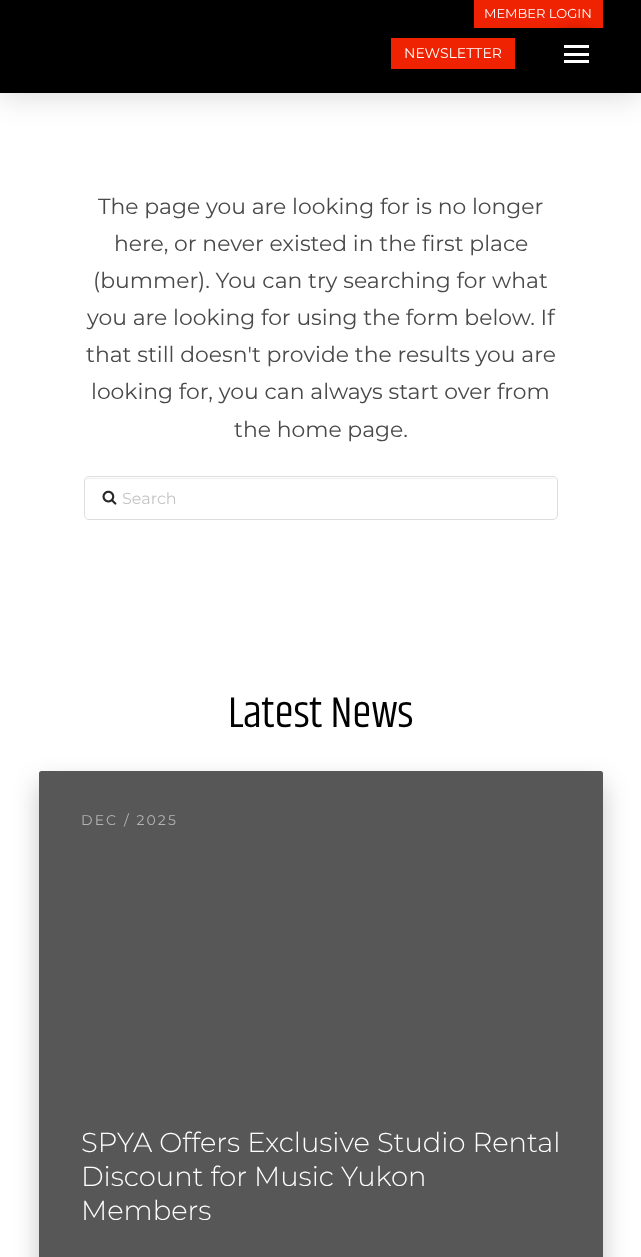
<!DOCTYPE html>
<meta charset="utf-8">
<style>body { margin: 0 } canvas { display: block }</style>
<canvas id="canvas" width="641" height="1257"></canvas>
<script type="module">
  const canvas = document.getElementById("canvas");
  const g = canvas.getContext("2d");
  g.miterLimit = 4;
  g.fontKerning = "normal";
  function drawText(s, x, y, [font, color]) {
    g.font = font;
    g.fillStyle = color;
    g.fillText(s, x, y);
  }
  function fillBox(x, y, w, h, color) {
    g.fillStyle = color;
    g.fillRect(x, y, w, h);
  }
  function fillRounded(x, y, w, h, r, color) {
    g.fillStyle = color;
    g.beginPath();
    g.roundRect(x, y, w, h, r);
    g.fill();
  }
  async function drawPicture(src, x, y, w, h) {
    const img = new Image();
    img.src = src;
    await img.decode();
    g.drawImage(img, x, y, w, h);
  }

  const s1 = ["13px Montserrat", "#FFFFFF"];
  const s2 = ["14px Montserrat", "#FFFFFF"];
  const s3 = ["21.9px Montserrat", "#494949"];
  const s4 = ["16px Montserrat", "#C5C5C5"];
  const s5 = ["43.75px Khand", "#000000"];
  const s6 = ["14px Montserrat", "#B3B3B3"];
  const s7 = ["300 27.4px Montserrat", "#FFFFFF"];

  fillBox(0, 0, 641, 1257, "#FFFFFF");
  g.fillStyle = "rgba(0, 0, 0, 0.15)";
  g.filter = "blur(15.5px)";
  g.beginPath();
  g.rect(0, 4, 641, 92);
  g.fill();
  g.filter = "none";
  fillBox(0, 0, 641, 93, "#000000");
  fillBox(474, 0, 129, 28, "#EF2201");
  drawText("MEMBER LOGIN", 484, 18, s1);
  fillBox(391, 38, 124, 31, "#EF2201");
  drawText("NEWSLETTER", 404, 58, s2);
  g.save();
  g.beginPath();
  g.moveTo(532, 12);
  g.lineTo(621, 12);
  g.lineTo(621, 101);
  g.lineTo(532, 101);
  g.closePath();
  g.moveTo(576, 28);
  g.lineTo(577, 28);
  g.bezierCurveTo(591.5, 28, 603, 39.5, 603, 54);
  g.bezierCurveTo(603, 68.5, 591.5, 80, 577, 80);
  g.lineTo(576, 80);
  g.bezierCurveTo(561.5, 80, 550, 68.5, 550, 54);
  g.bezierCurveTo(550, 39.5, 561.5, 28, 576, 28);
  g.closePath();
  g.clip("evenodd");
  g.fillStyle = "rgba(0, 0, 0, 0.25)";
  g.filter = "blur(5.5px)";
  g.beginPath();
  g.roundRect(550, 30, 53, 53, 26.5);
  g.fill();
  g.filter = "none";
  g.restore();
  fillBox(564, 45, 25, 3, "#FFFFFF");
  fillBox(564, 53, 25, 3, "#FFFFFF");
  fillBox(564, 60, 25, 3, "#FFFFFF");
  drawText("The page you are looking for is no longer", 98, 214, s3);
  drawText("here, or never existed in the first place", 114, 251, s3);
  drawText("(bummer). You can try searching for what", 93, 288, s3);
  drawText("you are looking for using the form below. If", 87, 325, s3);
  drawText("that still doesn't provide the results you are", 86, 362, s3);
  drawText("looking for, you can always start over from", 91, 399, s3);
  drawText("the home page.", 234, 437, s3);
  g.fillStyle = "#ECECEC";
  g.beginPath();
  g.moveTo(89, 479);
  g.lineTo(554, 479);
  g.lineTo(556, 480);
  g.bezierCurveTo(555, 479, 554, 478, 552, 478);
  g.lineTo(89, 478);
  g.bezierCurveTo(87, 478, 85, 480, 85, 482);
  g.bezierCurveTo(85, 480, 87, 479, 89, 479);
  g.closePath();
  g.fill();
  g.beginPath();
  g.roundRect(84.5, 476.5, 473, 43, 4.5);
  g.strokeStyle = "#DDDDDD";
  g.stroke();
  await drawPicture("pic1.png", 102, 490, 15, 15);
  drawText("Search", 122, 504, s4);
  drawText("Latest News", 228, 727, s5);
  g.save();
  g.beginPath();
  g.moveTo(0, 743);
  g.lineTo(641, 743);
  g.lineTo(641, 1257);
  g.lineTo(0, 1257);
  g.closePath();
  g.moveTo(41.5, 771);
  g.lineTo(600.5, 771);
  g.bezierCurveTo(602, 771, 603, 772, 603, 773.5);
  g.lineTo(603, 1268.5);
  g.bezierCurveTo(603, 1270, 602, 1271, 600.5, 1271);
  g.lineTo(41.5, 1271);
  g.bezierCurveTo(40, 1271, 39, 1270, 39, 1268.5);
  g.lineTo(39, 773.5);
  g.bezierCurveTo(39, 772, 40, 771, 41.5, 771);
  g.closePath();
  g.clip("evenodd");
  g.fillStyle = "rgba(0, 0, 0, 0.22)";
  g.filter = "blur(13px)";
  g.beginPath();
  g.roundRect(39, 783, 564, 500, 2.5);
  g.fill();
  g.filter = "none";
  g.restore();
  fillRounded(39, 771, 564, 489, 2.5, "rgba(0, 0, 0, 0.66)");
  g.letterSpacing = "2.1px";
  drawText("DEC / 2025", 81, 825, s6);
  g.letterSpacing = "0px";
  drawText("SPYA Offers Exclusive Studio Rental", 81, 1152, s7);
  drawText("Discount for Music Yukon", 81, 1186, s7);
  drawText("Members", 81, 1220, s7);
</script>
